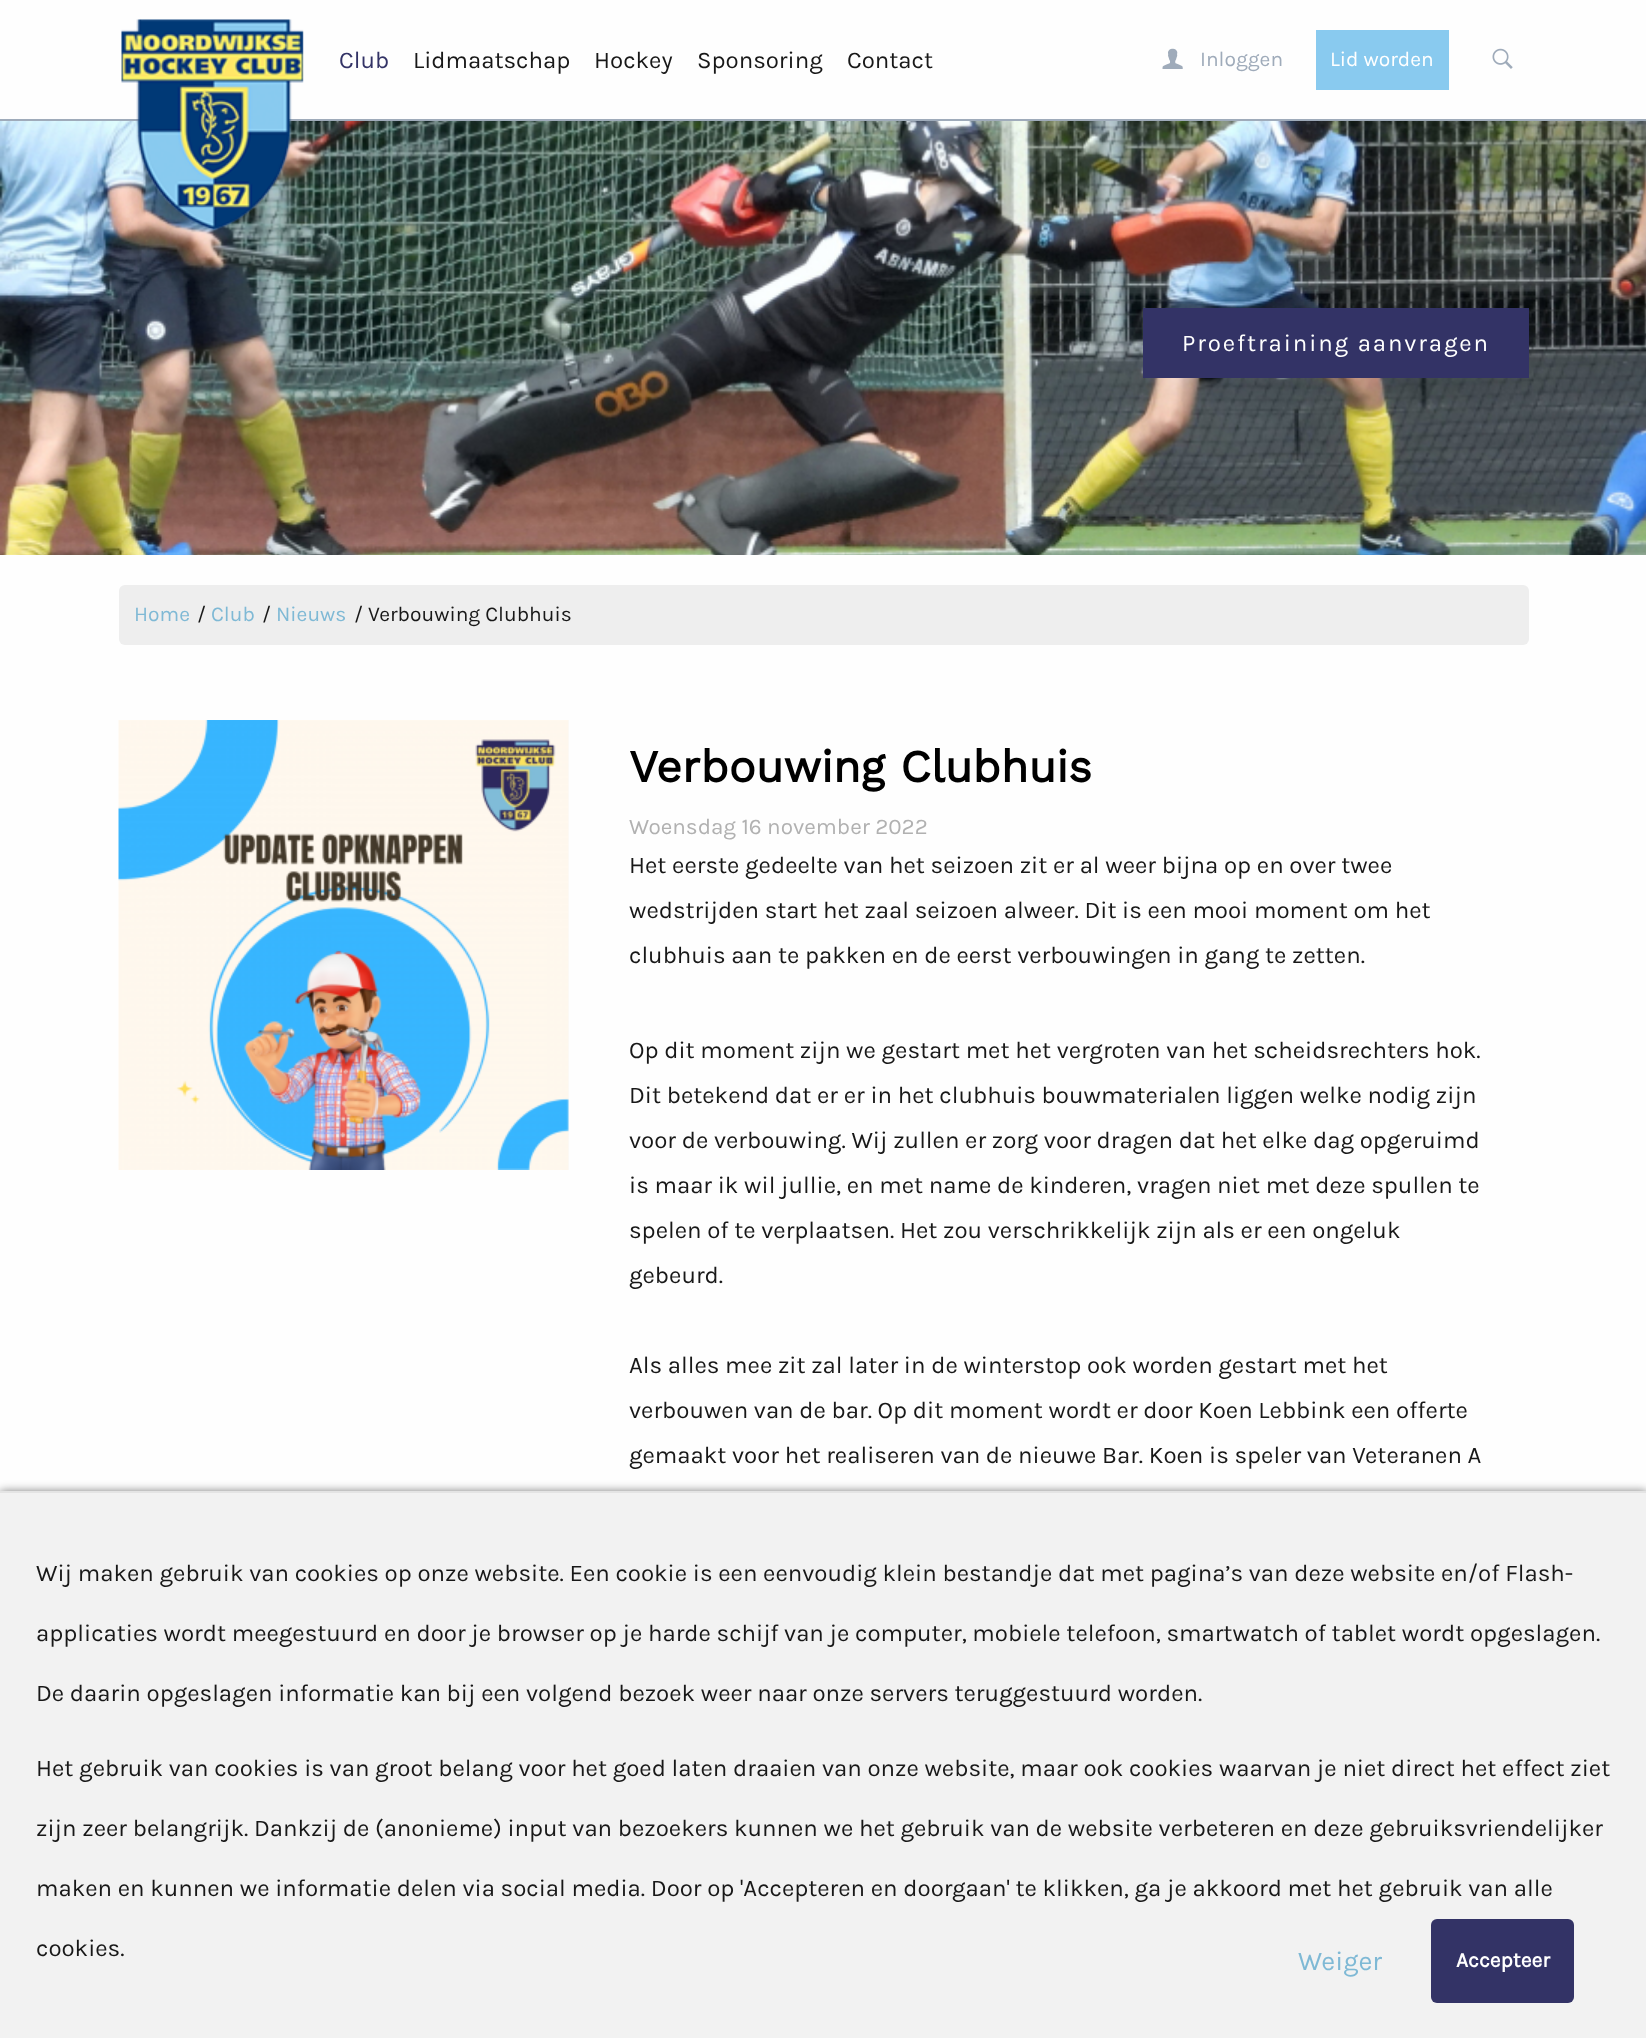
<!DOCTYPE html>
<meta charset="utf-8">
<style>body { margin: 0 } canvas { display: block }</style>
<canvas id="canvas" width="1646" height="2038"></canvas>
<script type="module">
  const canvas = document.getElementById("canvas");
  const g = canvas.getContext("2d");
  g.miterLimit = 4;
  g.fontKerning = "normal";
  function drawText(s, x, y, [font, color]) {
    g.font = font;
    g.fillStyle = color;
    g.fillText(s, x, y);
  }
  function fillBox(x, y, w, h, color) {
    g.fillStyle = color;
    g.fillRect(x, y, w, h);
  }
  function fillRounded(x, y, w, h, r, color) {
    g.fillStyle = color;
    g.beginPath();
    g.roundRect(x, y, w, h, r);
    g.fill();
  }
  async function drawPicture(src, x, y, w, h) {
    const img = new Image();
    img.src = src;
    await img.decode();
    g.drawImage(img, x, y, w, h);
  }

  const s1 = ["24px Karla", "#333366"];
  const s2 = ["24px Karla", "#181818"];
  const s3 = ["21px Karla", "#9FABBA"];
  const s4 = ["21px Karla", "#FFFFFF"];
  const s5 = ["24px Karla", "#FFFFFF"];
  const s6 = ["21px Karla", "#7FB9D5"];
  const s7 = ["21px Karla", "#181818"];
  const s8 = ["bold 45px Work Sans", "#000000"];
  const s9 = ["22.5px Karla", "#B1B1B1"];
  const s10 = ["27px Karla", "#7FB9D5"];
  const s11 = ["bold 21px Karla", "#FFFFFF"];

  fillBox(0, 0, 1646, 2038, "#FEFEFE");
  fillBox(0, 119, 1646, 2, "#9FABBA");
  await drawPicture("pic4.png", 0, 121, 1646, 434);
  await drawPicture("pic1.png", 121, 19, 183, 211);
  drawText("Club", 339, 68, s1);
  drawText("Lidmaatschap", 413, 68, s2);
  drawText("Hockey", 594, 68, s2);
  drawText("Sponsoring", 697, 68, s2);
  drawText("Contact", 847, 68, s2);
  await drawPicture("pic2.png", 1162, 48, 21, 21);
  drawText("Inloggen", 1200, 66, s3);
  fillBox(1316, 30, 133, 60, "#89CAEF");
  drawText("Lid worden", 1330, 66, s4);
  await drawPicture("pic3.png", 1492, 48, 21, 21);
  fillBox(1143, 308, 386, 70, "#333366");
  g.letterSpacing = "1.9px";
  drawText("Proeftraining aanvragen", 1182, 351, s5);
  fillRounded(119, 585, 1410, 60, 6, "#EEEEEE");
  g.letterSpacing = "0px";
  drawText("Home", 134, 621, s6);
  drawText("/", 197, 621, s7);
  drawText("Club", 211, 621, s6);
  drawText("/", 262, 621, s7);
  drawText("Nieuws", 276, 621, s6);
  drawText("/ Verbouwing Clubhuis", 354, 621, s7);
  fillBox(568, 720, 1, 450, "#FAFAFA");
  await drawPicture("pic5.png", 118, 720, 451, 450);
  drawText("Verbouwing Clubhuis", 629, 782, s8);
  drawText("Woensdag 16 november 2022", 629, 834, s9);
  drawText("Het eerste gedeelte van het seizoen zit er al weer bijna op en over twee", 629, 873, s2);
  drawText("wedstrijden start het zaal seizoen alweer. Dit is een mooi moment om het", 629, 918, s2);
  drawText("clubhuis aan te pakken en de eerst verbouwingen in gang te zetten.", 629, 963, s2);
  drawText("Op dit moment zijn we gestart met het vergroten van het scheidsrechters hok.", 629, 1058, s2);
  drawText("Dit betekend dat er er in het clubhuis bouwmaterialen liggen welke nodig zijn", 629, 1103, s2);
  drawText("voor de verbouwing. Wij zullen er zorg voor dragen dat het elke dag opgeruimd", 629, 1148, s2);
  drawText("is maar ik wil jullie, en met name de kinderen, vragen niet met deze spullen te", 629, 1193, s2);
  drawText("spelen of te verplaatsen. Het zou verschrikkelijk zijn als er een ongeluk", 629, 1238, s2);
  drawText("gebeurd.", 629, 1283, s2);
  drawText("Als alles mee zit zal later in de winterstop ook worden gestart met het", 629, 1373, s2);
  drawText("verbouwen van de bar. Op dit moment wordt er door Koen Lebbink een offerte", 629, 1418, s2);
  drawText("gemaakt voor het realiseren van de nieuwe Bar. Koen is speler van Veteranen A", 629, 1463, s2);
  g.fillStyle = "rgba(0, 0, 0, 0.5)";
  g.filter = "blur(5px)";
  g.beginPath();
  g.rect(0, 1491, 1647, 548);
  g.fill();
  g.filter = "none";
  fillBox(0, 1493, 1646, 545, "#F2F2F2");
  fillBox(0, 1491, 1646, 2, "#E4E4E4");
  drawText("Wij maken gebruik van cookies op onze website. Een cookie is een eenvoudig klein bestandje dat met pagina’s van deze website en/of Flash-", 36, 1581, s2);
  drawText("applicaties wordt meegestuurd en door je browser op je harde schijf van je computer, mobiele telefoon, smartwatch of tablet wordt opgeslagen.", 36, 1641, s2);
  drawText("De daarin opgeslagen informatie kan bij een volgend bezoek weer naar onze servers teruggestuurd worden.", 36, 1701, s2);
  drawText("Het gebruik van cookies is van groot belang voor het goed laten draaien van onze website, maar ook cookies waarvan je niet direct het effect ziet", 36, 1776, s2);
  drawText("zijn zeer belangrijk. Dankzij de (anonieme) input van bezoekers kunnen we het gebruik van de website verbeteren en deze gebruiksvriendelijker", 36, 1836, s2);
  drawText("maken en kunnen we informatie delen via social media. Door op 'Accepteren en doorgaan' te klikken, ga je akkoord met het gebruik van alle", 36, 1896, s2);
  drawText("cookies.", 36, 1956, s2);
  drawText("Weiger", 1298, 1970, s10);
  fillRounded(1431, 1919, 143, 84, 6, "#333366");
  drawText("Accepteer", 1456, 1967, s11);
</script>
